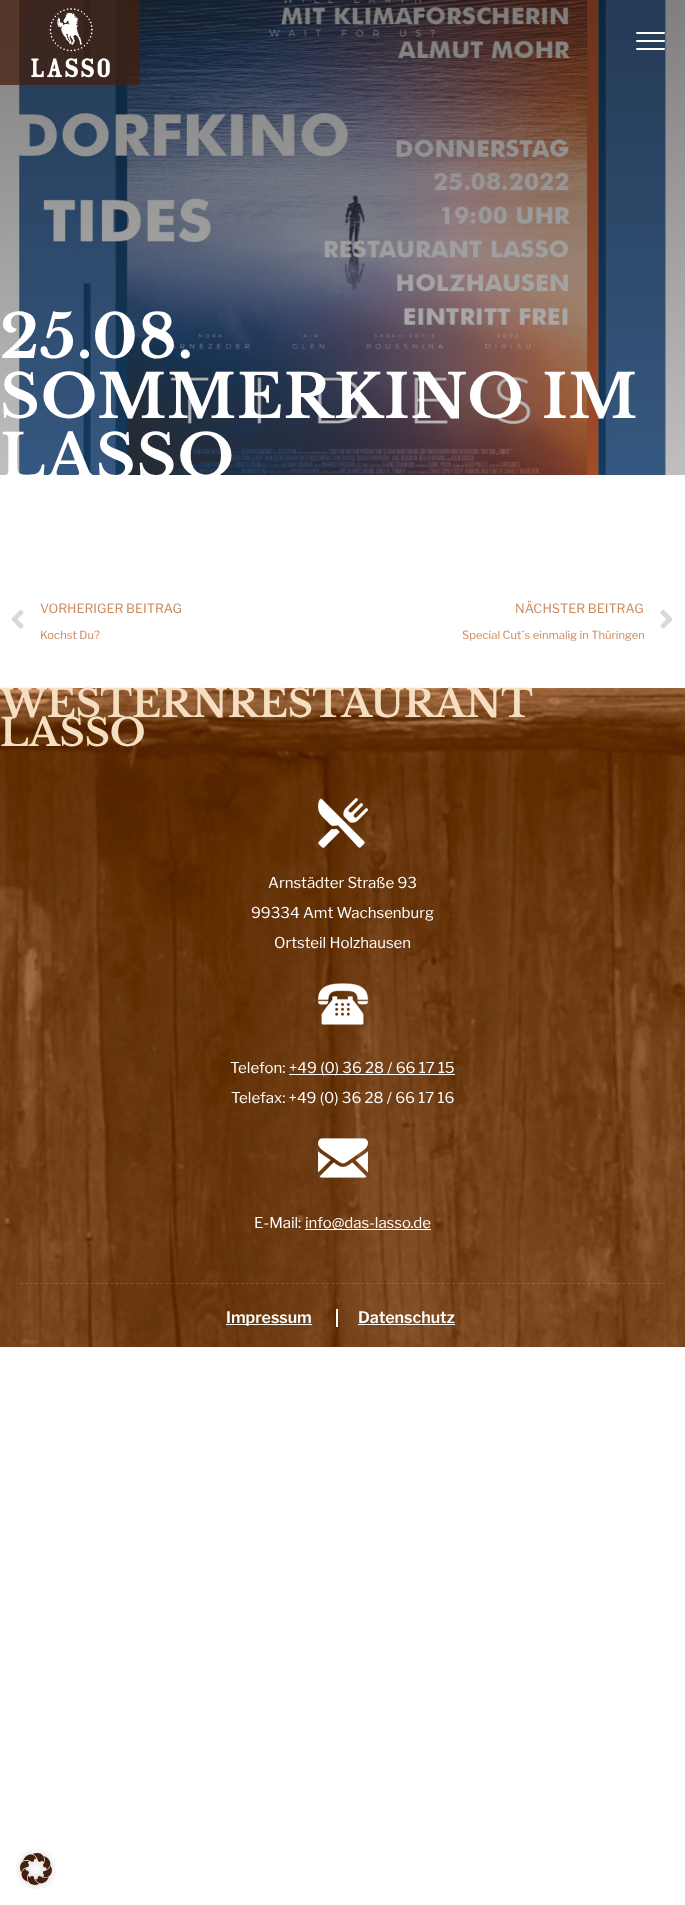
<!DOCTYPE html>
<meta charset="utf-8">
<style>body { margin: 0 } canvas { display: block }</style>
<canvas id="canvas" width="685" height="1905"></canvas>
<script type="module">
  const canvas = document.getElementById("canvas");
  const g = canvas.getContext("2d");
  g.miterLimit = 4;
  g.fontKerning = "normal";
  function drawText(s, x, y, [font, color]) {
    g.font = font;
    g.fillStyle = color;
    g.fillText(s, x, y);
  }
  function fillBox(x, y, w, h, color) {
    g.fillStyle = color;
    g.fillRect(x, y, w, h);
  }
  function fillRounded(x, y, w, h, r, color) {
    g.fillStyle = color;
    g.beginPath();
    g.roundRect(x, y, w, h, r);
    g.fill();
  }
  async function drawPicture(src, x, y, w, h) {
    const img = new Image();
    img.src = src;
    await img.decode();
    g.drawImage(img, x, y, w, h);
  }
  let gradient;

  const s1 = ["bold 60px Libre Baskerville", "#FFFFFF"];
  const s2 = ["12.75px Libre Franklin", "#C88B61"];
  const s3 = ["11.25px Libre Franklin", "#C88B61"];
  const s4 = ["bold 38px Libre Baskerville", "#F5DEC1"];
  const s5 = ["15px Libre Franklin", "#FFFFFF"];
  const s6 = ["600 16px Libre Franklin", "#FFFFFF"];

  fillBox(0, 0, 685, 1905, "#FFFFFF");
  await drawPicture("pic2.png", 18, 0, 648, 475);
  gradient = g.createLinearGradient(342, 0, 343, 475);
  gradient.addColorStop(0, "rgba(0, 0, 0, 0.5)");
  gradient.addColorStop(1, "rgba(0, 0, 0, 0.25)");
  g.fillStyle = gradient;
  g.fillRect(0, 0, 685, 475);
  fillBox(0, 0, 140, 85, "rgba(68, 31, 13, 0.75)");
  await drawPicture("pic1.png", 31, 8, 79, 70);
  fillRounded(636, 32, 29, 2, 1, "#FFFFFF");
  fillRounded(636, 40, 29, 2, 1, "#FFFFFF");
  fillRounded(636, 48, 29, 2, 1, "#FFFFFF");
  g.letterSpacing = "1px";
  drawText("25.08.", 0, 358, s1);
  drawText("SOMMERKINO IM", 0, 418, s1);
  drawText("LASSO", 0, 478, s1);
  await drawPicture("pic3.png", 11, 610, 13, 19);
  g.letterSpacing = "0px";
  drawText("VORHERIGER BEITRAG", 40, 613, s2);
  drawText("Kochst Du?", 40, 639, s3);
  drawText("NÄCHSTER BEITRAG", 515, 613, s2);
  drawText("Special Cut´s einmalig in Thüringen", 462, 639, s3);
  await drawPicture("pic4.png", 660, 610, 13, 19);
  await drawPicture("pic5.png", 0, 688, 685, 659);
  drawText("WESTERNRESTAURANT", 0, 717, s4);
  drawText("LASSO", 0, 746, s4);
  g.beginPath();
  g.moveTo(20, 1283.5);
  g.lineTo(665, 1283.5);
  g.strokeStyle = "rgba(255, 255, 255, 0.15)";
  g.setLineDash([3, 2.02]);
  g.stroke();
  await drawPicture("pic6.png", 318, 798, 50, 50);
  drawText("Arnstädter Straße 93", 268, 888, s5);
  drawText("99334 Amt Wachsenburg", 251, 918, s5);
  drawText("Ortsteil Holzhausen", 274, 948, s5);
  await drawPicture("pic7.png", 318, 983, 50, 42);
  drawText("Telefon:", 230, 1073, s5);
  fillBox(289, 1074, 166, 1, "#FFFFFF");
  drawText("+49 (0) 36 28 / 66 17 15", 289, 1073, s5);
  drawText("Telefax: +49 (0) 36 28 / 66 17 16", 231, 1103, s5);
  await drawPicture("pic8.png", 318, 1138, 50, 40);
  drawText("E-Mail:", 254, 1228, s5);
  fillBox(305, 1229, 126, 1, "#FFFFFF");
  drawText("info@das-lasso.de", 305, 1228, s5);
  fillBox(226, 1324, 86, 1, "#FFFFFF");
  drawText("Impressum", 226, 1323, s6);
  fillBox(336, 1309, 2, 18, "#FFFFFF");
  drawText("Datenschutz", 358, 1323, s6);
  fillBox(358, 1324, 97, 1, "#FFFFFF");
  await drawPicture("pic9.png", 16, 1849, 40, 40);
</script>
